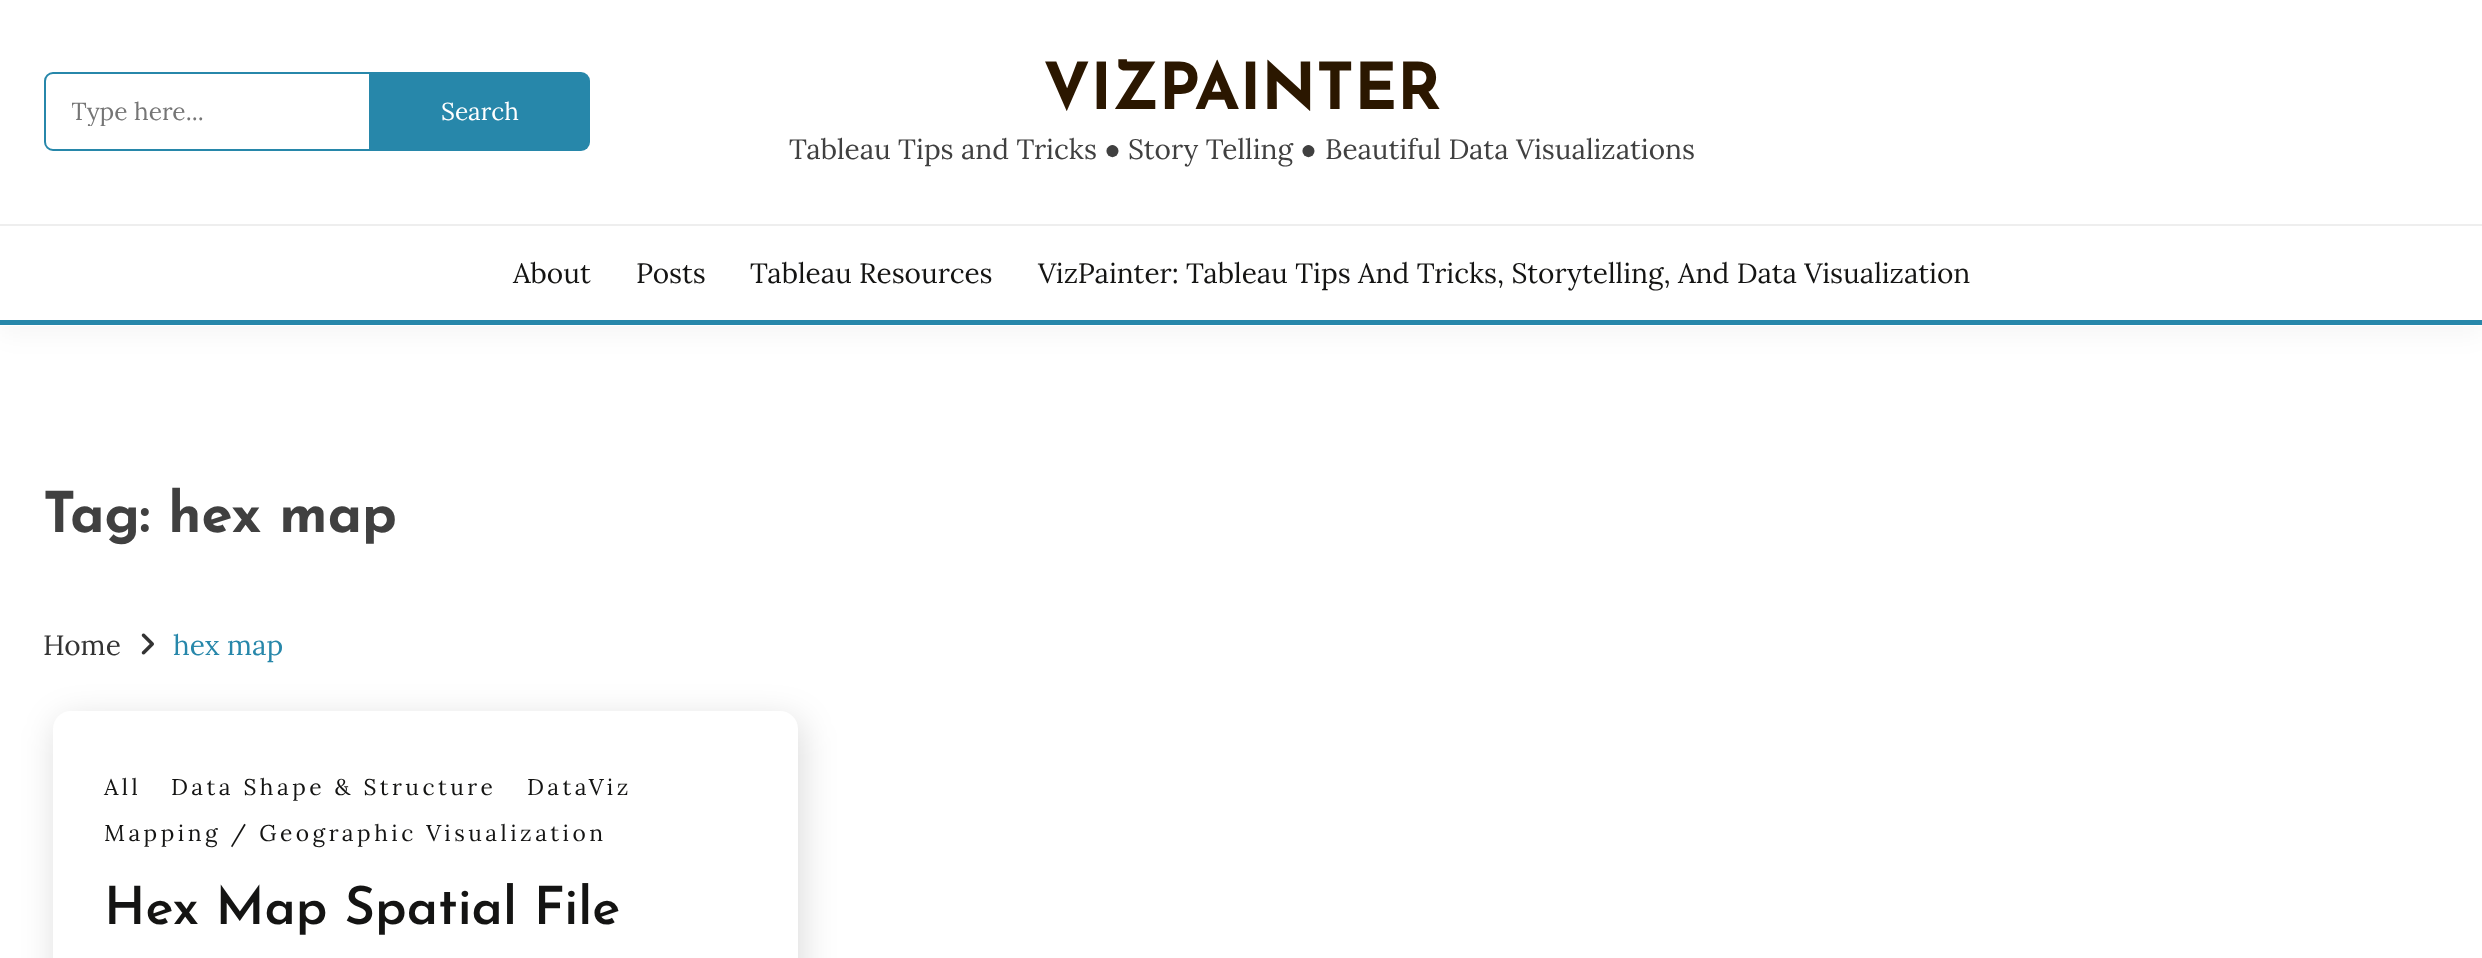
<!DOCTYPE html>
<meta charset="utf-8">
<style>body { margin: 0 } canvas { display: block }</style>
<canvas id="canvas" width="2482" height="958"></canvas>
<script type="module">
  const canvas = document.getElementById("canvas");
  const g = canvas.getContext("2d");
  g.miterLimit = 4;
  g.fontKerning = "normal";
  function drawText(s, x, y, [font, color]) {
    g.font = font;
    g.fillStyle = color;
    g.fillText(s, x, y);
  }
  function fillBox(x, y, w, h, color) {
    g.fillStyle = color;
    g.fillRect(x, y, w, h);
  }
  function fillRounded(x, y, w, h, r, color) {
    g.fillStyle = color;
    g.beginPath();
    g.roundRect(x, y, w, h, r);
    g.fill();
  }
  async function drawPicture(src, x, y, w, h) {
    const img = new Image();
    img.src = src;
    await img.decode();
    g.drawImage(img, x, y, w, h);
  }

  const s1 = ["24.5px Lora", "#757575"];
  const s2 = ["24.5px Lora", "#FFFFFF"];
  const s3 = ["bold 64.5px Josefin Sans", "#2B1700"];
  const s4 = ["28px Lora", "#404040"];
  const s5 = ["28px Liberation Serif", "#404040"];
  const s6 = ["28px Lora", "#141413"];
  const s7 = ["bold 56px Josefin Sans", "#404040"];
  const s8 = ["28px Lora", "#333333"];
  const s9 = ["28px Lora", "#2787AA"];
  const s10 = ["22.75px Lora", "#141413"];
  const s11 = ["600 52.5px Josefin Sans", "#141413"];

  fillBox(0, 0, 2482, 958, "#FFFFFF");
  g.fillStyle = "rgba(0, 0, 0, 0.04)";
  g.filter = "blur(13px)";
  g.beginPath();
  g.rect(0, 9, 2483, 325);
  g.fill();
  g.filter = "none";
  fillBox(0, 0, 2482, 326, "#FFFFFF");
  fillBox(0, 224, 2482, 2, "#EEEEEE");
  g.beginPath();
  g.roundRect(45, 73, 325, 77, [8, 0, 0, 8]);
  g.strokeStyle = "#2787AA";
  g.lineWidth = 2;
  g.stroke();
  g.save();
  g.beginPath();
  g.rect(72, 95, 247, 31);
  g.clip();
  drawText("Type here...", 71, 120, s1);
  g.restore();
  g.fillStyle = "#2787AA";
  g.beginPath();
  g.roundRect(371, 72, 219, 79, [0, 9, 9, 0]);
  g.fill();
  drawText("Search", 441, 120, s2);
  drawText("VIZPAINTER", 1043, 109, s3);
  drawText("Tableau Tips and Tricks", 789, 159, s4);
  drawText("●", 1104, 159, s5);
  drawText("Story Telling", 1128, 159, s4);
  drawText("●", 1300, 159, s5);
  drawText("Beautiful Data Visualizations", 1325, 159, s4);
  fillBox(0, 320, 2482, 5, "#2787AA");
  drawText("About", 513, 283, s6);
  drawText("Posts", 636, 283, s6);
  drawText("Tableau Resources", 750, 283, s6);
  drawText("VizPainter: Tableau Tips And Tricks, Storytelling, And Data Visualization", 1038, 283, s6);
  drawText("Tag: hex map", 43, 532, s7);
  drawText("Home", 43, 655, s8);
  await drawPicture("pic1.png", 141, 633, 13, 22);
  drawText("hex map", 173, 655, s9);
  g.fillStyle = "rgba(0, 0, 0, 0.14)";
  g.filter = "blur(17.5px)";
  g.beginPath();
  g.roundRect(56, 719, 746, 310, 18);
  g.fill();
  g.filter = "none";
  fillRounded(53, 711, 745, 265, 18, "#FFFFFF");
  g.letterSpacing = "3.5px";
  drawText("All", 104, 795, s10);
  drawText("Data Shape & Structure", 171, 795, s10);
  drawText("DataViz", 527, 795, s10);
  drawText("Mapping / Geographic Visualization", 104, 841, s10);
  g.letterSpacing = "0px";
  drawText("Hex Map Spatial File", 104, 924, s11);
</script>
